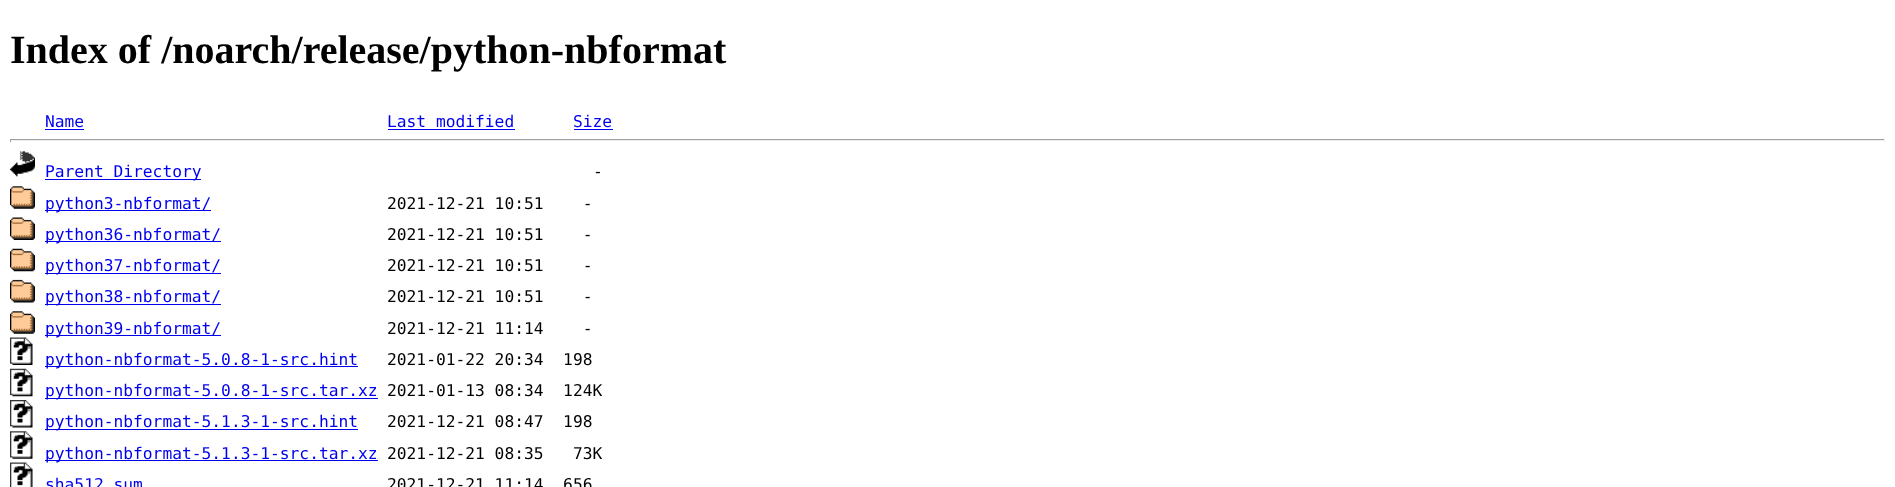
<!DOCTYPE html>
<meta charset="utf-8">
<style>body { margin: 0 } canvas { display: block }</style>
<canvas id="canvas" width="1895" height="487"></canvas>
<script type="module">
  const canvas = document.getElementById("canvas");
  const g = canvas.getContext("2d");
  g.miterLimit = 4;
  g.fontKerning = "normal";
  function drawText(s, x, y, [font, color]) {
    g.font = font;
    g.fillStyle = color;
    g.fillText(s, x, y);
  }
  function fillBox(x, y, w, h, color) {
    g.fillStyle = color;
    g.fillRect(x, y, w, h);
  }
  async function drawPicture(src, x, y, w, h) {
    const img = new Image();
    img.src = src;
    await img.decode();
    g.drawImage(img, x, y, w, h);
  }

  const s1 = ["bold 40px Liberation Serif", "#000000"];
  const s2 = ["16.25px DejaVu Sans Mono", "#0000EE"];
  const s3 = ["16.25px DejaVu Sans Mono", "#000000"];

  fillBox(0, 0, 1895, 487, "#FFFFFF");
  drawText("Index of /noarch/release/python-nbformat", 10, 63, s1);
  drawText("Name", 45, 127, s2);
  fillBox(45, 129, 39, 1, "#0000EE");
  drawText("Last modified", 387, 127, s2);
  fillBox(388, 129, 127, 1, "#0000EE");
  drawText("Size", 573, 127, s2);
  fillBox(574, 129, 39, 1, "#0000EE");
  fillBox(10, 139, 1875, 1, "#9F9F9F");
  fillBox(1884, 139, 1, 3, "#EEEEEE");
  fillBox(10, 140, 1875, 1, "#EEEEEE");
  fillBox(10, 139, 1, 3, "#9F9F9F");
  await drawPicture("pic1.png", 10, 151, 25, 26);
  fillBox(45, 179, 156, 1, "#0000EE");
  drawText("Parent Directory", 45, 177, s2);
  drawText("-", 593, 177, s3);
  await drawPicture("pic2.png", 10, 186, 25, 23);
  fillBox(45, 210, 166, 1, "#0000EE");
  drawText("python3-nbformat/", 45, 209, s2);
  drawText("2021-12-21 10:51    -", 387, 209, s3);
  await drawPicture("pic3.png", 10, 217, 25, 23);
  fillBox(45, 241, 176, 1, "#0000EE");
  drawText("python36-nbformat/", 45, 240, s2);
  drawText("2021-12-21 10:51    -", 387, 240, s3);
  await drawPicture("pic4.png", 10, 248, 25, 24);
  fillBox(45, 273, 176, 1, "#0000EE");
  drawText("python37-nbformat/", 45, 271, s2);
  drawText("2021-12-21 10:51    -", 387, 271, s3);
  await drawPicture("pic5.png", 10, 279, 25, 24);
  fillBox(45, 304, 176, 1, "#0000EE");
  drawText("python38-nbformat/", 45, 302, s2);
  drawText("2021-12-21 10:51    -", 387, 302, s3);
  await drawPicture("pic2.png", 10, 311, 25, 23);
  fillBox(45, 335, 176, 1, "#0000EE");
  drawText("python39-nbformat/", 45, 334, s2);
  drawText("2021-12-21 11:14    -", 387, 334, s3);
  await drawPicture("pic6.png", 10, 337, 23, 28);
  fillBox(45, 366, 313, 1, "#0000EE");
  drawText("python-nbformat-5.0.8-1-src.hint", 45, 365, s2);
  drawText("2021-01-22 20:34  198", 387, 365, s3);
  await drawPicture("pic7.png", 10, 368, 23, 29);
  fillBox(45, 398, 333, 1, "#0000EE");
  drawText("python-nbformat-5.0.8-1-src.tar.xz", 45, 396, s2);
  drawText("2021-01-13 08:34  124K", 387, 396, s3);
  await drawPicture("pic8.png", 10, 400, 23, 28);
  fillBox(45, 429, 313, 1, "#0000EE");
  drawText("python-nbformat-5.1.3-1-src.hint", 45, 427, s2);
  drawText("2021-12-21 08:47  198", 387, 427, s3);
  await drawPicture("pic9.png", 10, 431, 23, 28);
  fillBox(45, 460, 333, 1, "#0000EE");
  drawText("python-nbformat-5.1.3-1-src.tar.xz", 45, 459, s2);
  drawText("2021-12-21 08:35   73K", 387, 459, s3);
  await drawPicture("pic10.png", 10, 462, 23, 25);
  drawText("sha512.sum", 45, 490, s2);
  drawText("2021-12-21 11:14  656", 387, 490, s3);
</script>
